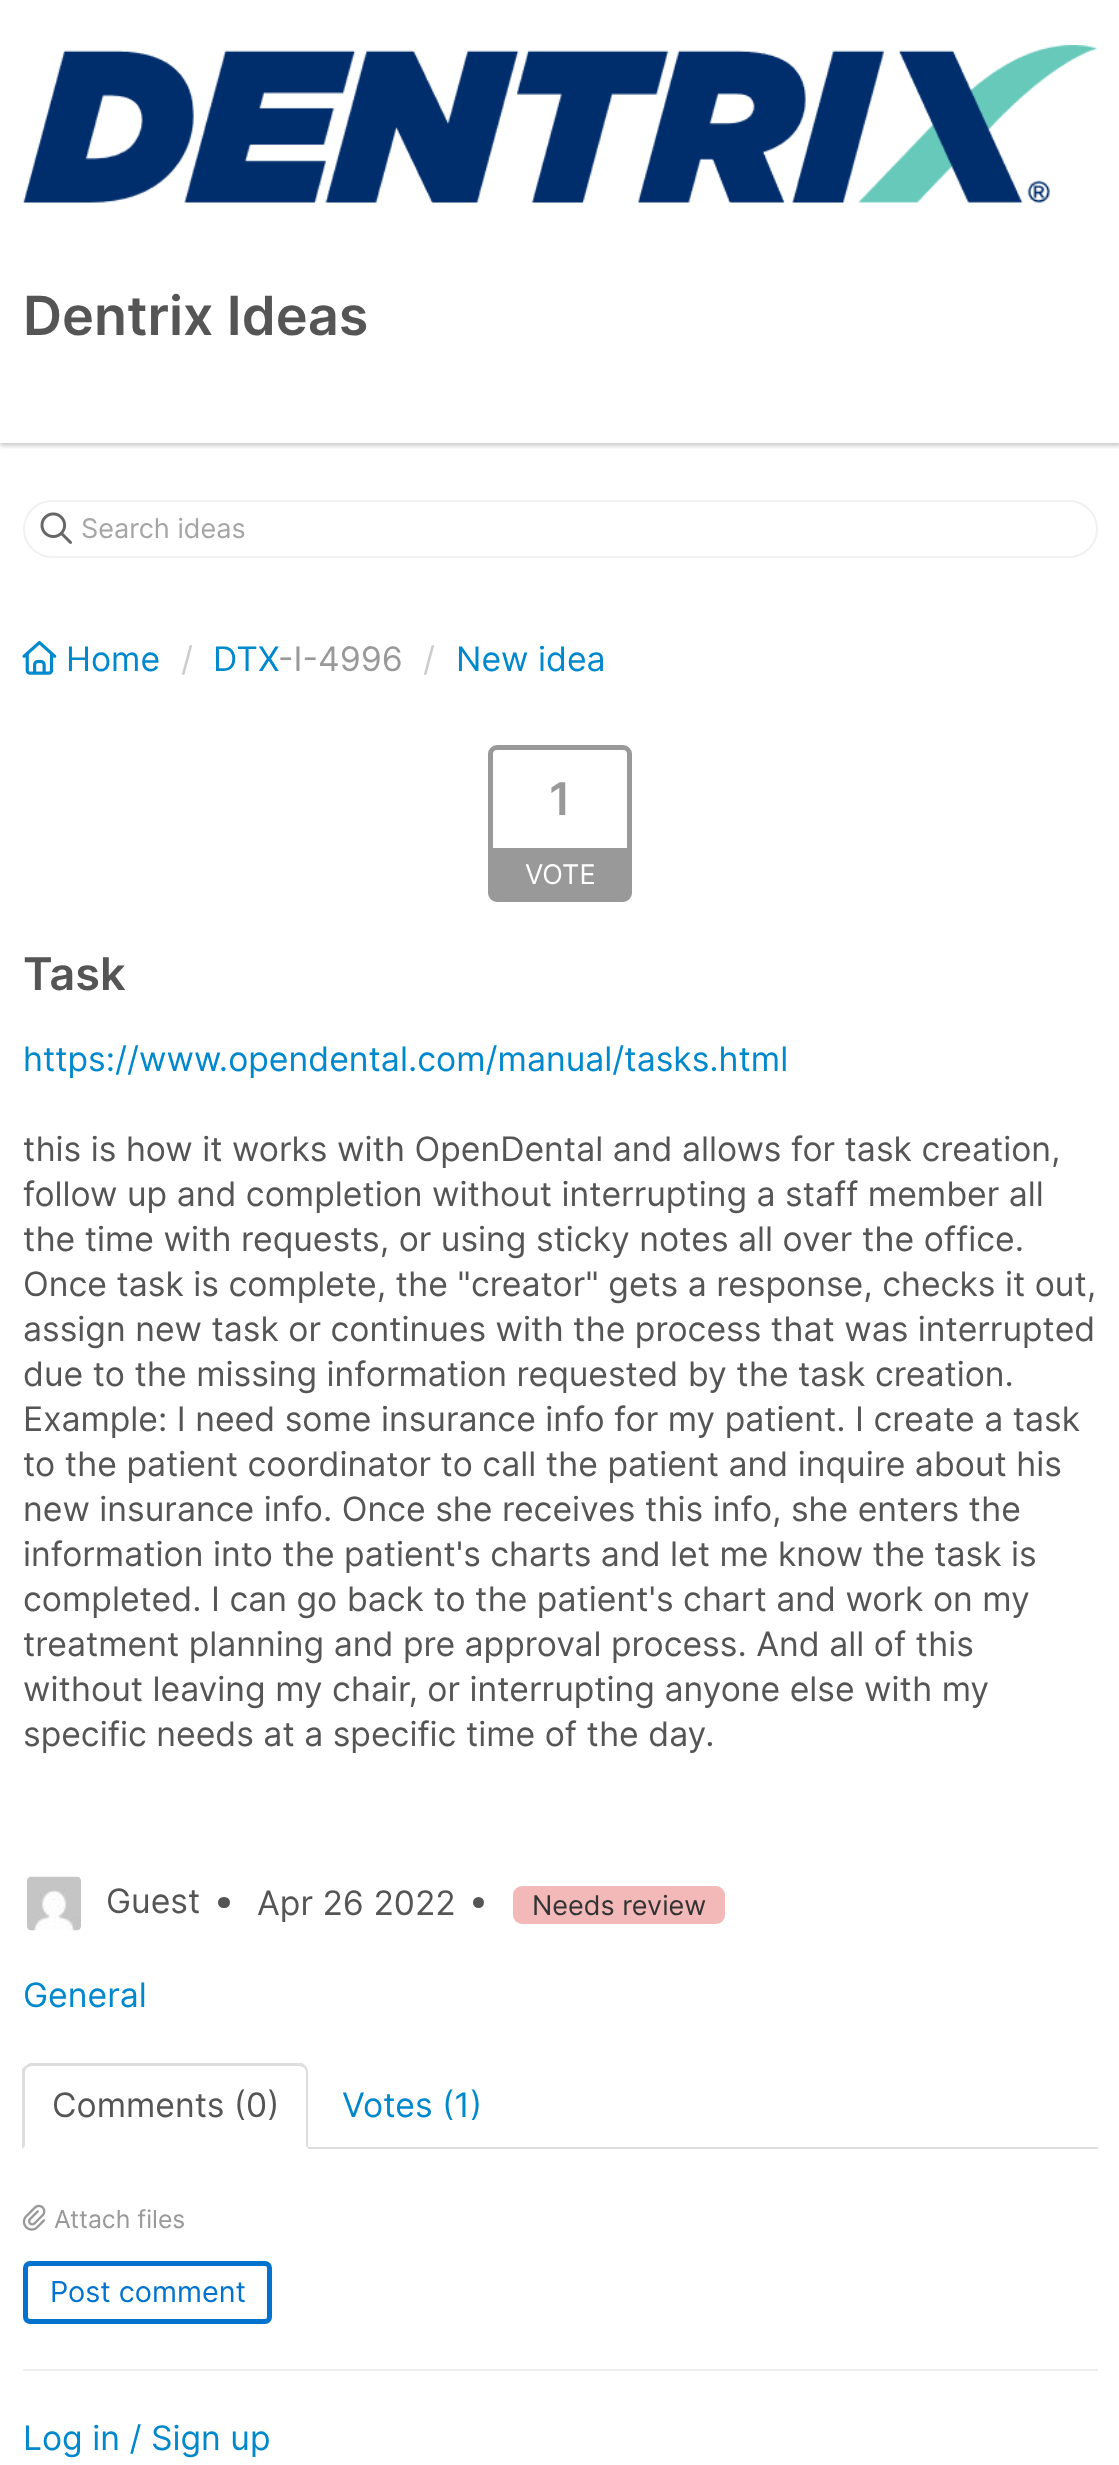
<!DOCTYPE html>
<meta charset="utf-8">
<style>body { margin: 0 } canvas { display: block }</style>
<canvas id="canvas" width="1119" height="2465"></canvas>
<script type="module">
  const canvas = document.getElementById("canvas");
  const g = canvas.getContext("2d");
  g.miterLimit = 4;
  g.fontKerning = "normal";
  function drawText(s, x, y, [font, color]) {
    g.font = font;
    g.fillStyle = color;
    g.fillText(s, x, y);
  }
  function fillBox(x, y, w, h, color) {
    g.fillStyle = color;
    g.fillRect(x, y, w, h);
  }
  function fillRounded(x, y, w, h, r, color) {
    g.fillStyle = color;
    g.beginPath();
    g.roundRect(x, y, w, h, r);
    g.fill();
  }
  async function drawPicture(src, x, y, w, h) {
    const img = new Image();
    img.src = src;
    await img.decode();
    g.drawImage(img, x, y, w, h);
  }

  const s1 = ["600 54px Inter", "#555555"];
  const s2 = ["27px Inter", "#A5A5A5"];
  const s3 = ["33.75px Inter", "#0088CC"];
  const s4 = ["33.75px Inter", "#CCCCCC"];
  const s5 = ["33.75px Inter", "#999999"];
  const s6 = ["600 45px Inter", "#999999"];
  const s7 = ["27px Inter", "#FFFFFF"];
  const s8 = ["600 45px Inter", "#555555"];
  const s9 = ["33.75px Inter", "#555555"];
  const s10 = ["27px Inter", "#333333"];
  const s11 = ["24.75px Inter", "#999999"];
  const s12 = ["28.75px Inter", "#0173CF"];

  fillBox(0, 0, 1119, 2465, "#FFFFFF");
  g.save();
  g.beginPath();
  g.rect(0, 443, 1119, 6);
  g.clip();
  g.fillStyle = "rgba(0, 0, 0, 0.2)";
  g.filter = "blur(2px)";
  g.beginPath();
  g.rect(0, 2, 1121, 444);
  g.fill();
  g.filter = "none";
  g.restore();
  await drawPicture("pic1.png", 22, 45, 1075, 158);
  drawText("Dentrix Ideas", 23, 335, s1);
  g.beginPath();
  g.roundRect(24, 501, 1073, 56, 28);
  g.strokeStyle = "#F1F1F1";
  g.lineWidth = 2;
  g.stroke();
  await drawPicture("pic2.png", 40, 512, 32, 32);
  drawText("Search ideas", 81, 538, s2);
  await drawPicture("pic3.png", 22, 641, 35, 34);
  drawText("Home", 66, 671, s3);
  drawText("/", 181, 671, s4);
  drawText("DTX", 213, 671, s3);
  drawText("-I-4996", 278, 671, s5);
  drawText("/", 423, 671, s4);
  drawText("New idea", 456, 671, s3);
  g.beginPath();
  g.roundRect(490.5, 747.5, 139, 152, 6.5);
  g.strokeStyle = "#999999";
  g.lineWidth = 5;
  g.stroke();
  drawText("1", 549, 815, s6);
  fillBox(493, 848, 134, 49, "#999999");
  drawText("VOTE", 525, 884, s7);
  fillBox(23, 2369, 1075, 2, "#EEEEEE");
  drawText("Task", 23, 990, s8);
  drawText("https://www.opendental.com/manual/tasks.html", 23, 1071, s3);
  drawText("this is how it works with OpenDental and allows for task creation,", 23, 1161, s9);
  drawText("follow up and completion without interrupting a staff member all", 23, 1206, s9);
  drawText("the time with requests, or using sticky notes all over the office.", 23, 1251, s9);
  drawText("Once task is complete, the \"creator\" gets a response, checks it out,", 23, 1296, s9);
  drawText("assign new task or continues with the process that was interrupted", 23, 1341, s9);
  drawText("due to the missing information requested by the task creation.", 23, 1386, s9);
  drawText("Example: I need some insurance info for my patient. I create a task", 23, 1431, s9);
  drawText("to the patient coordinator to call the patient and inquire about his", 23, 1476, s9);
  drawText("new insurance info. Once she receives this info, she enters the", 23, 1521, s9);
  drawText("information into the patient's charts and let me know the task is", 23, 1566, s9);
  drawText("completed. I can go back to the patient's chart and work on my", 23, 1611, s9);
  drawText("treatment planning and pre approval process. And all of this", 23, 1656, s9);
  drawText("without leaving my chair, or interrupting anyone else with my", 23, 1701, s9);
  drawText("specific needs at a specific time of the day.", 23, 1746, s9);
  await drawPicture("pic4.png", 27, 1876, 54, 55);
  drawText("Guest", 106, 1913, s9);
  fillRounded(218, 1897, 12, 11, 5.5, "#555555");
  drawText("Apr 26 2022", 257, 1915, s9);
  g.beginPath();
  g.arc(478.5, 1902.5, 5.5, 0, Math.PI * 2);
  g.fill();
  fillRounded(513, 1886, 212, 38, 9, "#F3B8B8");
  drawText("Needs review", 532, 1915, s10);
  drawText("General", 23, 2007, s3);
  fillBox(308, 2147, 790, 2, "#DDDDDD");
  g.beginPath();
  g.moveTo(32, 2066);
  g.bezierCurveTo(30, 2066, 28, 2067, 27, 2068);
  g.lineTo(25, 2066);
  g.lineTo(30, 2063);
  g.lineTo(301, 2063);
  g.bezierCurveTo(303, 2063, 305, 2065, 306, 2066);
  g.lineTo(304, 2068);
  g.bezierCurveTo(303, 2067, 301, 2066, 299, 2066);
  g.closePath();
  g.fill();
  g.beginPath();
  g.moveTo(306, 2066);
  g.bezierCurveTo(307, 2067, 308, 2070, 308, 2072);
  g.lineTo(308, 2148);
  g.lineTo(306, 2146);
  g.lineTo(306, 2071);
  g.lineTo(304, 2068);
  g.closePath();
  g.fill();
  g.beginPath();
  g.moveTo(22, 2149);
  g.lineTo(22, 2069);
  g.lineTo(25, 2066);
  g.lineTo(27, 2068);
  g.lineTo(25, 2071);
  g.lineTo(25, 2146);
  g.closePath();
  g.fill();
  drawText("Comments (0)", 52, 2117, s9);
  drawText("Votes (1)", 342, 2117, s3);
  await drawPicture("pic5.png", 22, 2204, 24, 27);
  drawText("Attach files", 54, 2228, s11);
  g.beginPath();
  g.roundRect(25.5, 2263.5, 244, 58, 4.5);
  g.strokeStyle = "#0173CF";
  g.stroke();
  drawText("Post comment", 50, 2302, s12);
  drawText("Log in / Sign up", 23, 2450, s3);
</script>
